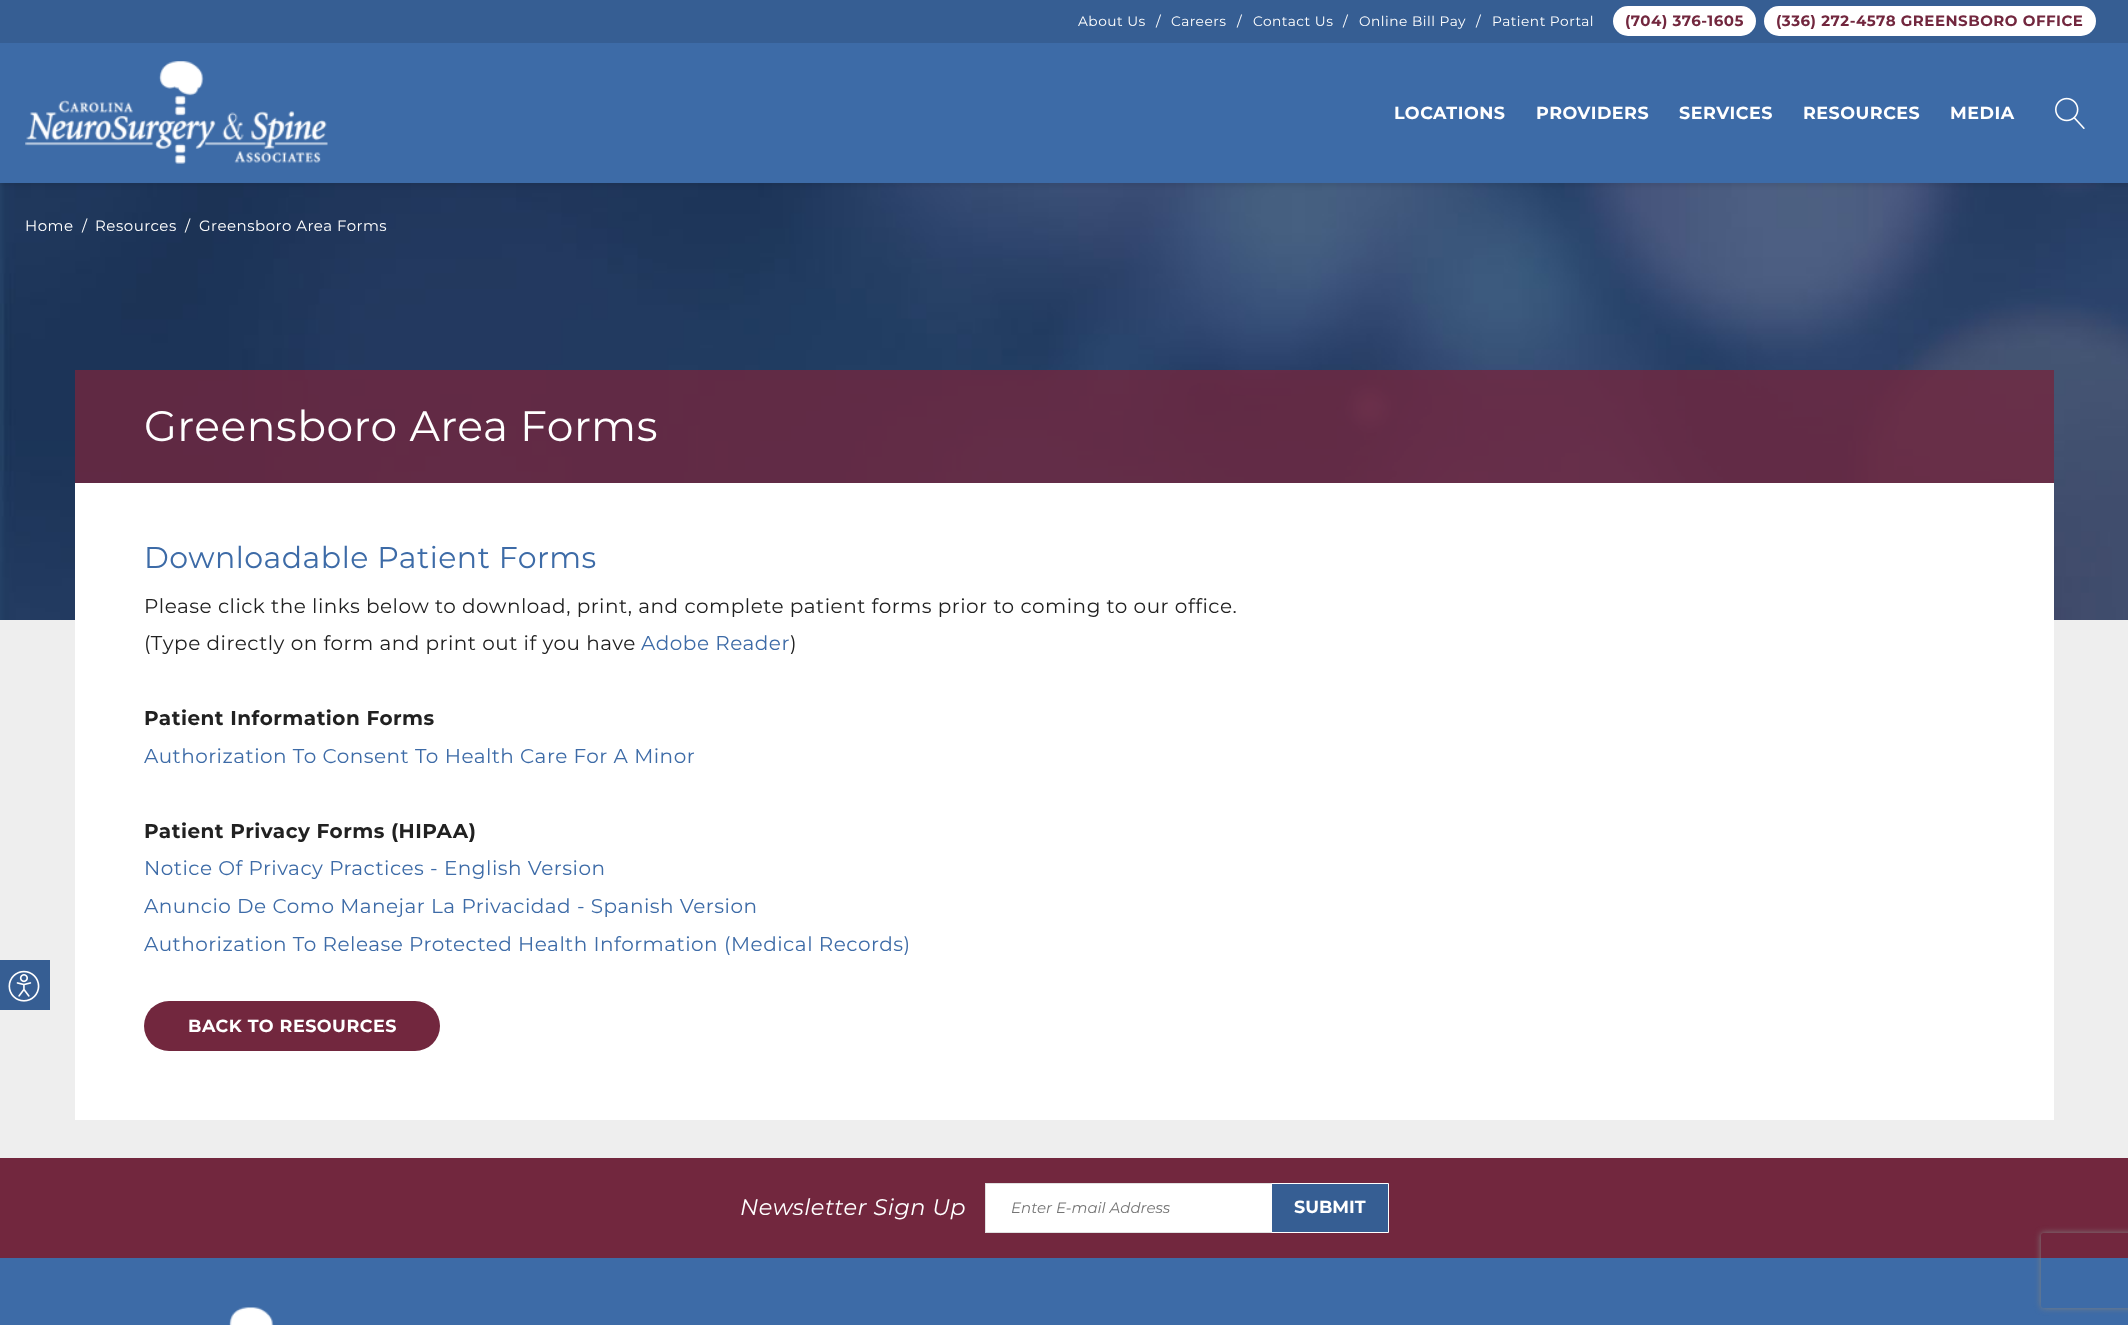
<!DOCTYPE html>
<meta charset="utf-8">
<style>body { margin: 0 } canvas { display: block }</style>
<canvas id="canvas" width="2128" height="1325"></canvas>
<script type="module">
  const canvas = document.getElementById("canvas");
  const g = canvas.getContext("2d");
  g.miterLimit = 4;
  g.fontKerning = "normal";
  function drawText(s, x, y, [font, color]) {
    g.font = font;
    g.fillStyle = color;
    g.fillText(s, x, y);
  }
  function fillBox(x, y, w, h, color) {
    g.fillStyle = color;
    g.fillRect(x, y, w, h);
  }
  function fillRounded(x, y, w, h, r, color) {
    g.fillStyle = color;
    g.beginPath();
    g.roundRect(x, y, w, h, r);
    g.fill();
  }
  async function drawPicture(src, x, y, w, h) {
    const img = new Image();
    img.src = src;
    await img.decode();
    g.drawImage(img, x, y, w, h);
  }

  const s1 = ["13.75px Montserrat", "#FFFFFF"];
  const s2 = ["bold 15px Montserrat", "#72273E"];
  const s3 = ["bold 17.5px Montserrat", "#FFFFFF"];
  const s4 = ["15px Montserrat", "#FFFFFF"];
  const s5 = ["42.5px Montserrat", "#FFFFFF"];
  const s6 = ["30px Montserrat", "#3D6BA7"];
  const s7 = ["20px Montserrat", "#212121"];
  const s8 = ["20px Montserrat", "#3D6BA7"];
  const s9 = ["bold 20px Montserrat", "#212121"];
  const s10 = ["italic 22.5px Montserrat", "#FFFFFF"];
  const s11 = ["italic 15px Montserrat", "#757575"];

  fillBox(0, 0, 2128, 1325, "#3D6BA7");
  fillBox(0, 620, 2128, 538, "#EEEEEE");
  fillBox(0, 960, 50, 50, "#365E93");
  await drawPicture("pic1.png", 8, 970, 32, 32);
  await drawPicture("pic4.png", 0, 183, 2128, 437);
  g.fillStyle = "rgba(0, 0, 0, 0.08)";
  g.filter = "blur(2px)";
  g.beginPath();
  g.rect(0, 4, 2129, 182);
  g.fill();
  g.filter = "none";
  fillBox(0, 43, 2128, 140, "#3D6BA7");
  fillBox(0, 0, 2128, 43, "#365E93");
  g.letterSpacing = "0.5px";
  drawText("About Us", 1078, 26, s1);
  drawText("/", 1156, 26, s1);
  drawText("Careers", 1171, 26, s1);
  drawText("/", 1237, 26, s1);
  drawText("Contact Us", 1253, 26, s1);
  drawText("/", 1343, 26, s1);
  drawText("Online Bill Pay", 1359, 26, s1);
  drawText("/", 1476, 26, s1);
  drawText("Patient Portal", 1492, 26, s1);
  fillRounded(1613, 6, 143, 30, 15, "#FFFFFF");
  drawText("(704) 376-1605", 1625, 26, s2);
  fillRounded(1764, 6, 332, 30, 15, "#FFFFFF");
  drawText("(336) 272-4578 GREENSBORO OFFICE", 1776, 26, s2);
  await drawPicture("pic2.png", 25, 61, 303, 103);
  drawText("LOCATIONS", 1394, 119, s3);
  drawText("PROVIDERS", 1536, 119, s3);
  drawText("SERVICES", 1679, 119, s3);
  drawText("RESOURCES", 1803, 119, s3);
  drawText("MEDIA", 1950, 119, s3);
  await drawPicture("pic3.png", 2055, 97, 30, 32);
  drawText("Home", 25, 231, s4);
  drawText("/", 82, 231, s4);
  drawText("Resources", 95, 231, s4);
  drawText("/", 185, 231, s4);
  drawText("Greensboro Area Forms", 199, 231, s4);
  fillBox(75, 370, 1979, 113, "rgba(114, 39, 62, 0.8)");
  drawText("Greensboro Area Forms", 144, 441, s5);
  fillBox(75, 483, 1979, 637, "#FFFFFF");
  drawText("Downloadable Patient Forms", 144, 568, s6);
  drawText("Please click the links below to download, print, and complete patient forms prior to coming to our office.", 144, 613, s7);
  drawText("(Type directly on form and print out if you have", 144, 650, s7);
  drawText("Adobe Reader", 641, 650, s8);
  drawText(")", 790, 650, s7);
  drawText("Patient Information Forms", 144, 725, s9);
  drawText("Authorization To Consent To Health Care For A Minor", 144, 763, s8);
  drawText("Patient Privacy Forms (HIPAA)", 144, 838, s9);
  drawText("Notice Of Privacy Practices - English Version", 144, 875, s8);
  drawText("Anuncio De Como Manejar La Privacidad - Spanish Version", 144, 913, s8);
  drawText("Authorization To Release Protected Health Information (Medical Records)", 144, 951, s8);
  fillRounded(144, 1001, 296, 50, 25, "#72273E");
  drawText("BACK TO RESOURCES", 188, 1032, s3);
  fillBox(0, 1158, 2128, 100, "#72273E");
  drawText("Newsletter Sign Up", 740, 1215, s10);
  fillBox(986, 1184, 285, 48, "#FFFFFF");
  g.strokeStyle = "#E0E0E0";
  g.strokeRect(985.5, 1183.5, 293, 49);
  g.letterSpacing = "0px";
  drawText("Enter E-mail Address", 1011, 1213, s11);
  g.fillStyle = "#365E93";
  g.beginPath();
  g.rect(1271.5, 1183.5, 117, 49);
  g.fill();
  g.strokeStyle = "#FFFFFF";
  g.stroke();
  drawText("SUBMIT", 1294, 1213, s3);
  g.save();
  g.beginPath();
  g.moveTo(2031, 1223);
  g.lineTo(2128, 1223);
  g.lineTo(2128, 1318);
  g.lineTo(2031, 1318);
  g.closePath();
  g.moveTo(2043.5, 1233);
  g.lineTo(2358.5, 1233);
  g.bezierCurveTo(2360, 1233, 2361, 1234, 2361, 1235.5);
  g.lineTo(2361, 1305.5);
  g.bezierCurveTo(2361, 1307, 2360, 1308, 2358.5, 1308);
  g.lineTo(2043.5, 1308);
  g.bezierCurveTo(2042, 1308, 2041, 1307, 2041, 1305.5);
  g.lineTo(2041, 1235.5);
  g.bezierCurveTo(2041, 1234, 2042, 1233, 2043.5, 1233);
  g.closePath();
  g.clip("evenodd");
  g.fillStyle = "#808080";
  g.filter = "blur(3px)";
  g.beginPath();
  g.roundRect(2041, 1233, 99, 75, 2.5);
  g.fill();
  g.filter = "none";
  g.restore();
  await drawPicture("pic5.png", 229, 1307, 45, 18);
</script>
